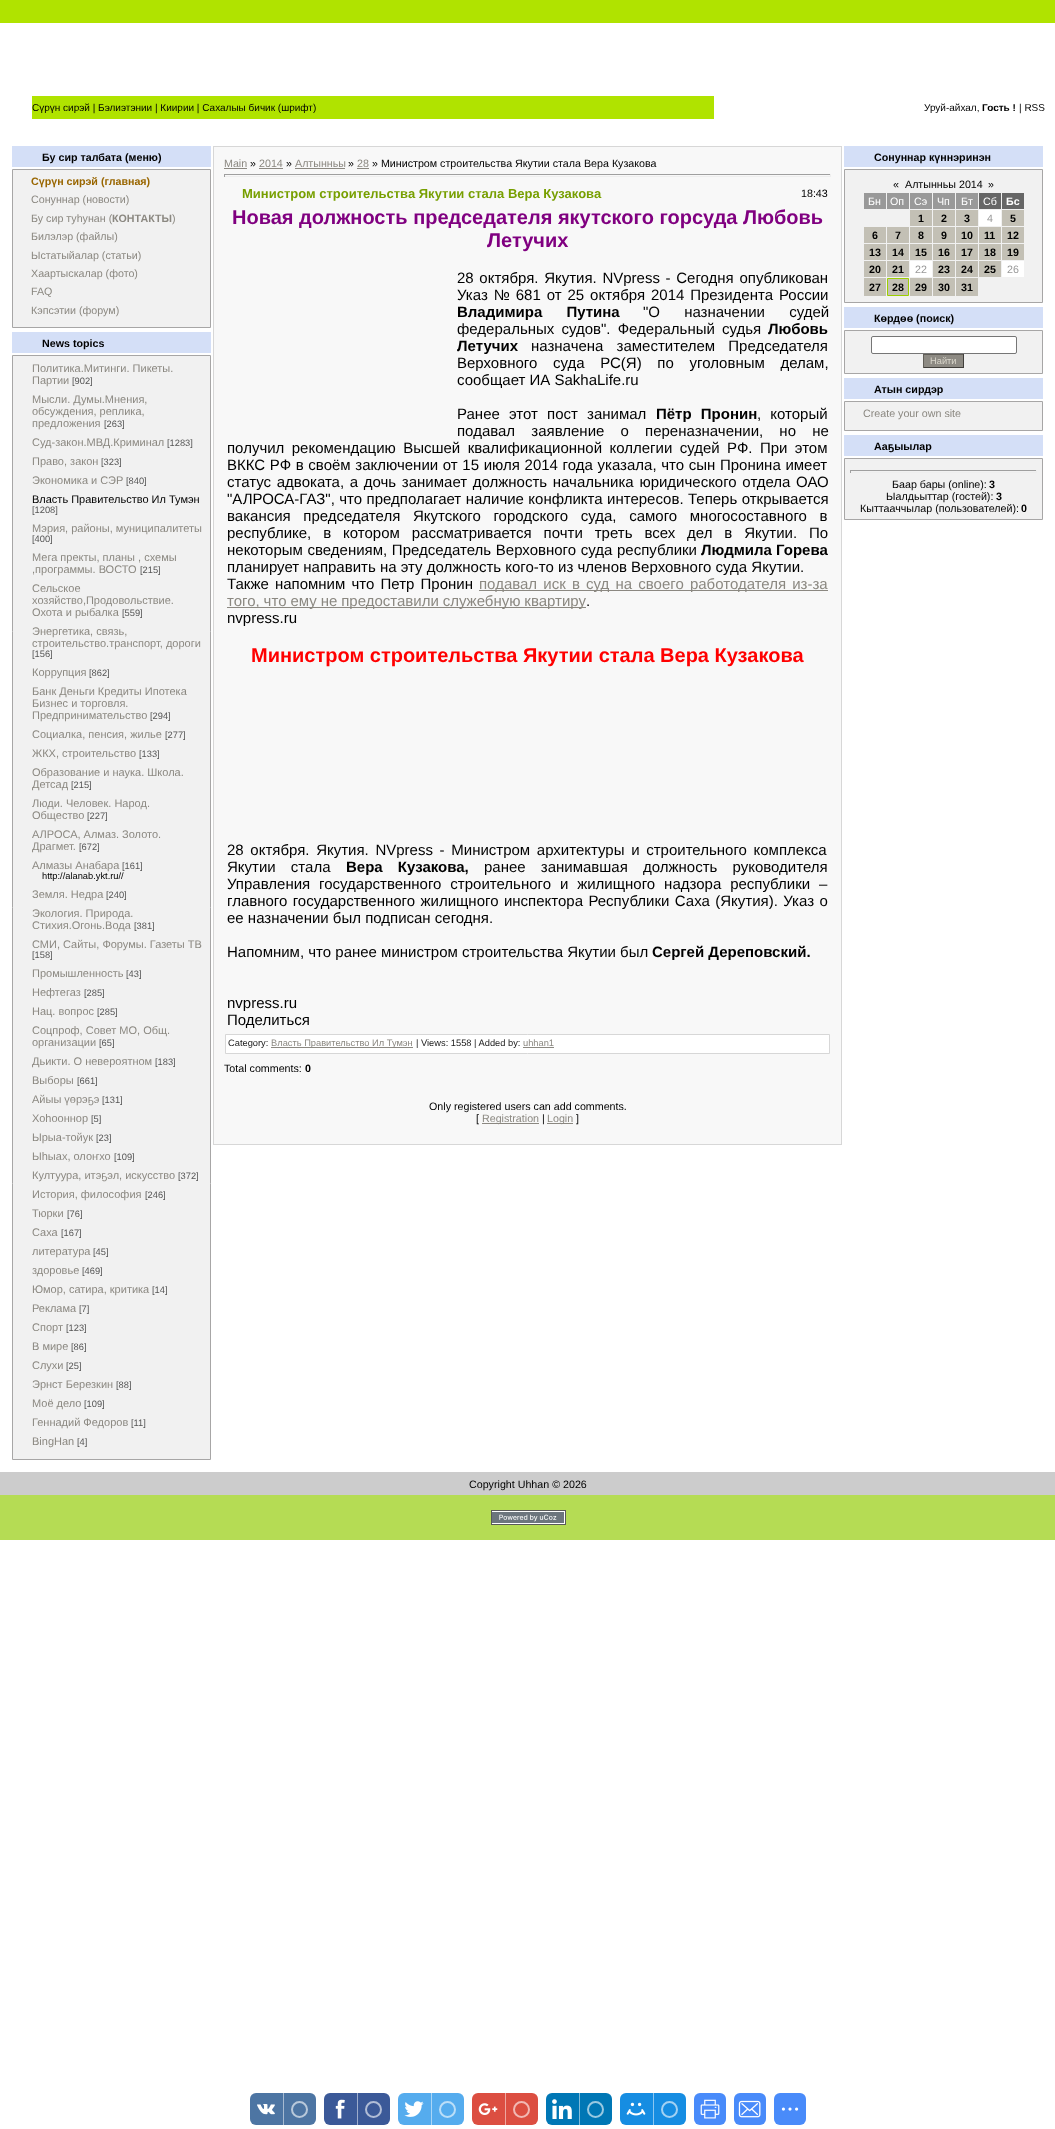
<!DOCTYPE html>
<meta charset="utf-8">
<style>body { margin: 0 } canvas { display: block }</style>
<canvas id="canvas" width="1055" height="2129"></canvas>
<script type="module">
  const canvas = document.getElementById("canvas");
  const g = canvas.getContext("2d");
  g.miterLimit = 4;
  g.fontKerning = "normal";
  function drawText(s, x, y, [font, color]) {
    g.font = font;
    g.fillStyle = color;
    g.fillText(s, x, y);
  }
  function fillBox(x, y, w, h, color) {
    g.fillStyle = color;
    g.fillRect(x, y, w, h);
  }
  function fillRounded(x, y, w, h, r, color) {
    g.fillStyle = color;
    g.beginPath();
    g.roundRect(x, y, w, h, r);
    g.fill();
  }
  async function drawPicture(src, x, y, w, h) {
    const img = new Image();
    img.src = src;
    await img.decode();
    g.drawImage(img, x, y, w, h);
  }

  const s1 = ["10px Liberation Sans", "#000000"];
  const s2 = ["bold 10px Liberation Sans", "#000000"];
  const s3 = ["bold 10.7px Liberation Sans", "#000000"];
  const s4 = ["bold 10.7px Liberation Sans", "#996600"];
  const s5 = ["10.7px Liberation Sans", "#8B8881"];
  const s6 = ["bold 10.7px Liberation Sans", "#8B8881"];
  const s7 = ["11px Liberation Sans", "#8B8881"];
  const s8 = ["9.3px Liberation Sans", "#555555"];
  const s9 = ["11px Liberation Sans", "#000000"];
  const s10 = ["9.3px Liberation Sans", "#000000"];
  const s11 = ["10.7px Liberation Sans", "#000000"];
  const s12 = ["bold 13px Liberation Sans", "#779F00"];
  const s13 = ["bold 20px Liberation Sans", "#800080"];
  const s14 = ["15px Liberation Sans", "#000000"];
  const s15 = ["bold 15px Liberation Sans", "#000000"];
  const s16 = ["15px Liberation Sans", "#8B8881"];
  const s17 = ["bold 20px Liberation Sans", "#FF0000"];
  const s18 = ["9.3px Liberation Sans", "#1A1A1A"];
  const s19 = ["9.3px Liberation Sans", "#8B8881"];
  const s20 = ["10.7px Liberation Sans", "#FFFFFF"];
  const s21 = ["bold 10.7px Liberation Sans", "#FFFFFF"];
  const s22 = ["10.7px Liberation Sans", "#999999"];
  const s23 = ["9.3px Liberation Sans", "#DAD7CC"];

  fillBox(0, 0, 1055, 2129, "#FFFFFF");
  fillBox(0, 0, 1055, 23, "#B0E300");
  fillBox(32, 96, 682, 23, "#B0E300");
  drawText("Сүрүн сирэй | Бэлиэтэнии | Киирии | Сахалыы бичик (шрифт)", 32, 111, s1);
  drawText("Уруй-айхал,", 924, 111, s1);
  drawText("Гость !", 982, 111, s2);
  drawText("| RSS", 1019, 111, s1);
  fillBox(12, 146, 199, 21, "#D4DFF7");
  drawText("Бу сир талбата (меню)", 42, 161, s3);
  g.fillStyle = "#F1F1F1";
  g.beginPath();
  g.rect(12.5, 169.5, 198, 158);
  g.fill();
  g.strokeStyle = "#A7A6A6";
  g.stroke();
  drawText("Сүрүн сирэй (главная)", 31, 185, s4);
  drawText("Сонуннар (новости)", 31, 203, s5);
  drawText("Бу сир туһунан (", 31, 222, s5);
  drawText("КОНТАКТЫ", 112, 222, s6);
  drawText(")", 172, 222, s5);
  drawText("Билэлэр (файлы)", 31, 240, s5);
  drawText("Ыстатыйалар (статьи)", 31, 259, s5);
  drawText("Хаартыскалар (фото)", 31, 277, s5);
  drawText("FAQ", 31, 295, s5);
  drawText("Кэпсэтии (форум)", 31, 314, s5);
  fillBox(12, 332, 199, 21, "#D4DFF7");
  drawText("News topics", 42, 347, s3);
  g.fillStyle = "#F1F1F1";
  g.beginPath();
  g.rect(12.5, 355.5, 198, 1104);
  g.fill();
  g.stroke();
  drawText("Политика.Митинги. Пикеты.", 32, 372, s7);
  drawText("Партии", 32, 384, s7);
  drawText("[902]", 72, 384, s8);
  drawText("Мысли. Думы.Мнения,", 32, 403, s7);
  drawText("обсуждения, реплика,", 32, 415, s7);
  drawText("предложения", 32, 427, s7);
  drawText("[263]", 104, 427, s8);
  drawText("Суд-закон.МВД.Криминал", 32, 446, s7);
  drawText("[1283]", 167, 446, s8);
  drawText("Право, закон", 32, 465, s7);
  drawText("[323]", 101, 465, s8);
  drawText("Экономика и СЭР", 32, 484, s7);
  drawText("[840]", 126, 484, s8);
  drawText("Власть Правительство Ил Тумэн", 32, 503, s9);
  drawText("[1208]", 32, 513, s8);
  drawText("Мэрия, районы, муниципалитеты", 32, 532, s7);
  drawText("[400]", 32, 542, s8);
  drawText("Мега пректы, планы , схемы", 32, 561, s7);
  drawText(",программы. ВОСТО", 32, 573, s7);
  drawText("[215]", 140, 573, s8);
  drawText("Сельское", 32, 592, s7);
  drawText("хозяйство,Продовольствие.", 32, 604, s7);
  drawText("Охота и рыбалка", 32, 616, s7);
  drawText("[559]", 122, 616, s8);
  drawText("Энергетика, связь,", 32, 635, s7);
  drawText("строительство.транспорт, дороги", 32, 647, s7);
  drawText("[156]", 32, 657, s8);
  drawText("Коррупция", 32, 676, s7);
  drawText("[862]", 89, 676, s8);
  drawText("Банк Деньги Кредиты Ипотека", 32, 695, s7);
  drawText("Бизнес и торговля.", 32, 707, s7);
  drawText("Предпринимательство", 32, 719, s7);
  drawText("[294]", 150, 719, s8);
  drawText("Социалка, пенсия, жилье", 32, 738, s7);
  drawText("[277]", 165, 738, s8);
  drawText("ЖКХ, строительство", 32, 757, s7);
  drawText("[133]", 139, 757, s8);
  drawText("Образование и наука. Школа.", 32, 776, s7);
  drawText("Детсад", 32, 788, s7);
  drawText("[215]", 71, 788, s8);
  drawText("Люди. Человек. Народ.", 32, 807, s7);
  drawText("Общество", 32, 819, s7);
  drawText("[227]", 87, 819, s8);
  drawText("АЛРОСА, Алмаз. Золото.", 32, 838, s7);
  drawText("Драгмет.", 32, 850, s7);
  drawText("[672]", 79, 850, s8);
  drawText("Алмазы Анабара", 32, 869, s7);
  drawText("[161]", 122, 869, s8);
  drawText("http://alanab.ykt.ru//", 42, 879, s10);
  drawText("Земля. Недра", 32, 898, s7);
  drawText("[240]", 106, 898, s8);
  drawText("Экология. Природа.", 32, 917, s7);
  drawText("Стихия.Огонь.Вода", 32, 929, s7);
  drawText("[381]", 134, 929, s8);
  drawText("СМИ, Сайты, Форумы. Газеты ТВ", 32, 948, s7);
  drawText("[158]", 32, 958, s8);
  drawText("Промышленность", 32, 977, s7);
  drawText("[43]", 126, 977, s8);
  drawText("Нефтегаз", 32, 996, s7);
  drawText("[285]", 84, 996, s8);
  drawText("Нац. вопрос", 32, 1015, s7);
  drawText("[285]", 97, 1015, s8);
  drawText("Соцпроф, Совет МО, Общ.", 32, 1034, s7);
  drawText("организации", 32, 1046, s7);
  drawText("[65]", 99, 1046, s8);
  drawText("Дьикти. О невероятном", 32, 1065, s7);
  drawText("[183]", 155, 1065, s8);
  drawText("Выборы", 32, 1084, s7);
  drawText("[661]", 77, 1084, s8);
  drawText("Айыы үөрэҕэ", 32, 1103, s7);
  drawText("[131]", 102, 1103, s8);
  drawText("Хоһооннор", 32, 1122, s7);
  drawText("[5]", 91, 1122, s8);
  drawText("Ырыа-тойук", 32, 1141, s7);
  drawText("[23]", 96, 1141, s8);
  drawText("Ыһыах, олоҥхо", 32, 1160, s7);
  drawText("[109]", 114, 1160, s8);
  drawText("Култуура, итэҕэл, искусство", 32, 1179, s7);
  drawText("[372]", 178, 1179, s8);
  drawText("История, философия", 32, 1198, s7);
  drawText("[246]", 145, 1198, s8);
  drawText("Тюрки", 32, 1217, s7);
  drawText("[76]", 67, 1217, s8);
  drawText("Саха", 32, 1236, s7);
  drawText("[167]", 61, 1236, s8);
  drawText("литература", 32, 1255, s7);
  drawText("[45]", 93, 1255, s8);
  drawText("здоровье", 32, 1274, s7);
  drawText("[469]", 82, 1274, s8);
  drawText("Юмор, сатира, критика", 32, 1293, s7);
  drawText("[14]", 152, 1293, s8);
  drawText("Реклама", 32, 1312, s7);
  drawText("[7]", 79, 1312, s8);
  drawText("Спорт", 32, 1331, s7);
  drawText("[123]", 66, 1331, s8);
  drawText("В мире", 32, 1350, s7);
  drawText("[86]", 71, 1350, s8);
  drawText("Слухи", 32, 1369, s7);
  drawText("[25]", 66, 1369, s8);
  drawText("Эрнст Березкин", 32, 1388, s7);
  drawText("[88]", 116, 1388, s8);
  drawText("Моё дело", 32, 1407, s7);
  drawText("[109]", 84, 1407, s8);
  drawText("Геннадий Федоров", 32, 1426, s7);
  drawText("[11]", 131, 1426, s8);
  drawText("BingHan", 32, 1445, s7);
  drawText("[4]", 77, 1445, s8);
  g.strokeStyle = "#D7D7D7";
  g.strokeRect(213.5, 146.5, 628, 998);
  fillBox(214, 147, 627, 997, "#F8F8F8");
  drawText("Main", 224, 167, s5);
  fillBox(224, 168, 23, 1, "#8B8881");
  drawText("»", 250, 167, s11);
  drawText("2014", 259, 167, s5);
  fillBox(259, 168, 24, 1, "#8B8881");
  drawText("»", 286, 167, s11);
  drawText("Алтынньы", 295, 167, s5);
  fillBox(295, 168, 50, 1, "#8B8881");
  drawText("»", 348, 167, s11);
  drawText("28", 357, 167, s5);
  fillBox(357, 168, 12, 1, "#8B8881");
  drawText("» Министром строительства Якутии стала Вера Кузакова", 372, 167, s11);
  fillBox(224, 174, 607, 1, "#9F9F9F");
  fillBox(830, 174, 1, 3, "#EEEEEE");
  fillBox(224, 176, 607, 1, "#EEEEEE");
  fillBox(224, 174, 1, 3, "#9F9F9F");
  drawText("Министром строительства Якутии стала Вера Кузакова", 242, 198, s12);
  drawText("18:43", 801, 197, s11);
  drawText("Новая должность председателя якутского горсуда Любовь", 232, 224, s13);
  drawText("Летучих", 487, 247, s13);
  g.wordSpacing = "1.5px";
  drawText("28 октября. Якутия. NVpress - Сегодня опубликован", 457, 283, s14);
  g.wordSpacing = "1.75px";
  drawText("Указ № 681 от 25 октября 2014 Президента России", 457, 300, s14);
  g.wordSpacing = "20px";
  drawText("Владимира Путина", 457, 317, s15);
  drawText("\"О назначении судей", 643, 317, s14);
  g.wordSpacing = "3px";
  drawText("федеральных судов\". Федеральный судья", 457, 334, s14);
  g.wordSpacing = "0px";
  drawText("Любовь", 768, 334, s15);
  drawText("Летучих", 457, 351, s15);
  g.wordSpacing = "9px";
  drawText("назначена заместителем Председателя", 531, 351, s14);
  g.wordSpacing = "11.5px";
  drawText("Верховного суда РС(Я) по уголовным делам,", 457, 368, s14);
  g.wordSpacing = "0px";
  drawText("сообщает ИА SakhaLife.ru", 457, 385, s14);
  g.wordSpacing = "5px";
  drawText("Ранее этот пост занимал", 457, 419, s14);
  drawText("Пётр Пронин", 656, 419, s15);
  drawText(", который", 757, 419, s14);
  g.wordSpacing = "12px";
  drawText("подавал заявление о переназначении, но не", 457, 436, s14);
  g.wordSpacing = "3.25px";
  drawText("получил рекомендацию Высшей квалификационной коллегии судей РФ. При этом", 227, 453, s14);
  g.wordSpacing = "0.5px";
  drawText("ВККС РФ в своём заключении от 15 июля 2014 года указала, что сын Пронина имеет", 227, 470, s14);
  g.wordSpacing = "1.5px";
  drawText("статус адвоката, а дочь занимает должность начальника юридического отдела ОАО", 227, 487, s14);
  g.wordSpacing = "0.25px";
  drawText("\"АЛРОСА-ГАЗ\", что предполагает наличие конфликта интересов. Теперь открывается", 227, 504, s14);
  g.wordSpacing = "8.5px";
  drawText("вакансия председателя Якутского городского суда, самого многосоставного в", 227, 521, s14);
  g.wordSpacing = "7.75px";
  drawText("республике, в котором рассматривается почти треть всех дел в Якутии. По", 227, 538, s14);
  g.wordSpacing = "0.5px";
  drawText("некоторым сведениям, Председатель Верховного суда республики", 227, 555, s14);
  g.wordSpacing = "0px";
  drawText("Людмила Горева", 701, 555, s15);
  drawText("планирует направить на эту должность кого-то из членов Верховного суда Якутии.", 227, 572, s14);
  g.wordSpacing = "2px";
  drawText("Также напомним что Петр Пронин", 227, 589, s14);
  fillBox(479, 590, 349, 1, "#8B8881");
  drawText("подавал иск в суд на своего работодателя из-за", 479, 589, s16);
  fillBox(227, 607, 359, 1, "#8B8881");
  g.wordSpacing = "-0.25px";
  drawText("того, что ему не предоставили служебную квартиру", 227, 606, s16);
  g.wordSpacing = "0px";
  drawText(".", 586, 606, s14);
  drawText("nvpress.ru", 227, 623, s14);
  drawText("Министром строительства Якутии стала Вера Кузакова", 251, 662, s17);
  g.wordSpacing = "2.5px";
  drawText("28 октября. Якутия. NVpress - Министром архитектуры и строительного комплекса", 227, 855, s14);
  g.wordSpacing = "11px";
  drawText("Якутии стала", 227, 872, s14);
  drawText("Вера Кузакова,", 346, 872, s15);
  drawText("ранее занимавшая должность руководителя", 484, 872, s14);
  g.wordSpacing = "4.75px";
  drawText("Управления государственного строительного и жилищного надзора республики –", 227, 889, s14);
  g.wordSpacing = "1.25px";
  drawText("главного государственного жилищного инспектора Республики Саха (Якутия). Указ о", 227, 906, s14);
  g.wordSpacing = "0px";
  drawText("ее назначении был подписан сегодня.", 227, 923, s14);
  drawText("Напомним, что ранее министром строительства Якутии был", 227, 957, s14);
  drawText("Сергей Дереповский.", 652, 957, s15);
  drawText("nvpress.ru", 227, 1008, s14);
  drawText("Поделиться", 227, 1025, s14);
  g.fillStyle = "#FFFFFF";
  g.beginPath();
  g.rect(225.5, 1034.5, 604, 19);
  g.fill();
  g.stroke();
  drawText("Category:", 228, 1046, s18);
  fillBox(271, 1047, 142, 1, "#8B8881");
  drawText("Власть Правительство Ил Тумэн", 271, 1046, s19);
  drawText("| Views: 1558 | Added by:", 416, 1046, s18);
  drawText("uhhan1", 523, 1046, s19);
  fillBox(523, 1047, 31, 1, "#8B8881");
  drawText("Total comments:", 224, 1072, s11);
  drawText("0", 305, 1072, s3);
  drawText("Only registered users can add comments.", 429, 1110, s11);
  drawText("[", 476, 1122, s11);
  fillBox(482, 1123, 57, 1, "#8B8881");
  drawText("Registration", 482, 1122, s5);
  drawText("|", 542, 1122, s11);
  fillBox(547, 1123, 26, 1, "#8B8881");
  drawText("Login", 547, 1122, s5);
  drawText("]", 576, 1122, s11);
  fillBox(844, 146, 199, 21, "#D4DFF7");
  drawText("Сонуннар күннэринэн", 874, 161, s3);
  g.fillStyle = "#F1F1F1";
  g.beginPath();
  g.rect(844.5, 169.5, 198, 133);
  g.fill();
  g.strokeStyle = "#A7A6A6";
  g.stroke();
  drawText("«", 893, 188, s11);
  drawText("Алтынньы 2014", 905, 188, s11);
  drawText("»", 988, 188, s11);
  fillBox(864, 193, 22, 16, "#999999");
  drawText("Бн", 868, 205, s20);
  fillBox(887, 193, 22, 16, "#999999");
  drawText("Оп", 890, 205, s20);
  fillBox(910, 193, 22, 16, "#999999");
  drawText("Сэ", 914, 205, s20);
  fillBox(933, 193, 22, 16, "#999999");
  drawText("Чп", 937, 205, s20);
  fillBox(956, 193, 22, 16, "#999999");
  drawText("Бт", 961, 205, s20);
  fillBox(979, 193, 22, 16, "#666666");
  drawText("Сб", 983, 205, s20);
  fillBox(1002, 193, 22, 16, "#666666");
  drawText("Бс", 1006, 205, s21);
  fillBox(910, 210, 22, 16, "#C3C0B5");
  drawText("1", 918, 222, s3);
  fillBox(933, 210, 22, 16, "#C3C0B5");
  drawText("2", 941, 222, s3);
  fillBox(956, 210, 22, 16, "#C3C0B5");
  drawText("3", 964, 222, s3);
  fillBox(979, 210, 22, 16, "#FFFFFF");
  drawText("4", 987, 222, s22);
  fillBox(1002, 210, 22, 16, "#C3C0B5");
  drawText("5", 1010, 222, s3);
  fillBox(864, 227, 22, 16, "#C3C0B5");
  drawText("6", 872, 239, s3);
  fillBox(887, 227, 22, 16, "#C3C0B5");
  drawText("7", 895, 239, s3);
  fillBox(910, 227, 22, 16, "#C3C0B5");
  drawText("8", 918, 239, s3);
  fillBox(933, 227, 22, 16, "#C3C0B5");
  drawText("9", 941, 239, s3);
  fillBox(956, 227, 22, 16, "#C3C0B5");
  drawText("10", 961, 239, s3);
  fillBox(979, 227, 22, 16, "#C3C0B5");
  drawText("11", 984, 239, s3);
  fillBox(1002, 227, 22, 16, "#C3C0B5");
  drawText("12", 1007, 239, s3);
  fillBox(864, 244, 22, 16, "#C3C0B5");
  drawText("13", 869, 256, s3);
  fillBox(887, 244, 22, 16, "#C3C0B5");
  drawText("14", 892, 256, s3);
  fillBox(910, 244, 22, 16, "#C3C0B5");
  drawText("15", 915, 256, s3);
  fillBox(933, 244, 22, 16, "#C3C0B5");
  drawText("16", 938, 256, s3);
  fillBox(956, 244, 22, 16, "#C3C0B5");
  drawText("17", 961, 256, s3);
  fillBox(979, 244, 22, 16, "#C3C0B5");
  drawText("18", 984, 256, s3);
  fillBox(1002, 244, 22, 16, "#C3C0B5");
  drawText("19", 1007, 256, s3);
  fillBox(864, 261, 22, 16, "#C3C0B5");
  drawText("20", 869, 273, s3);
  fillBox(887, 261, 22, 16, "#C3C0B5");
  drawText("21", 892, 273, s3);
  fillBox(910, 261, 22, 16, "#FFFFFF");
  drawText("22", 915, 273, s22);
  fillBox(933, 261, 22, 16, "#C3C0B5");
  drawText("23", 938, 273, s3);
  fillBox(956, 261, 22, 16, "#C3C0B5");
  drawText("24", 961, 273, s3);
  fillBox(979, 261, 22, 16, "#C3C0B5");
  drawText("25", 984, 273, s3);
  fillBox(1002, 261, 22, 16, "#FFFFFF");
  drawText("26", 1007, 273, s22);
  fillBox(864, 278, 22, 18, "#C3C0B5");
  drawText("27", 869, 291, s3);
  g.fillStyle = "#C3C0B5";
  g.beginPath();
  g.rect(887.5, 278.5, 21, 17);
  g.fill();
  g.strokeStyle = "#9CCF00";
  g.stroke();
  drawText("28", 892, 291, s3);
  fillBox(910, 278, 22, 18, "#C3C0B5");
  drawText("29", 915, 291, s3);
  fillBox(933, 278, 22, 18, "#C3C0B5");
  drawText("30", 938, 291, s3);
  fillBox(956, 278, 22, 18, "#C3C0B5");
  drawText("31", 961, 291, s3);
  fillBox(844, 307, 199, 21, "#D4DFF7");
  drawText("Көрдөө (поиск)", 874, 322, s3);
  g.fillStyle = "#F1F1F1";
  g.beginPath();
  g.rect(844.5, 330.5, 198, 43);
  g.fill();
  g.strokeStyle = "#A7A6A6";
  g.stroke();
  g.fillStyle = "#FFFFFF";
  g.beginPath();
  g.roundRect(871.5, 336.5, 145, 17, 1.5);
  g.fill();
  g.strokeStyle = "#767676";
  g.stroke();
  fillBox(924, 355, 39, 12, "#8D8A83");
  fillBox(923, 354, 41, 1, "#615E58");
  fillBox(963, 354, 1, 14, "#413F3B");
  fillBox(923, 367, 41, 1, "#413F3B");
  fillBox(923, 354, 1, 14, "#615E58");
  drawText("Найти", 930, 364, s23);
  fillBox(844, 378, 199, 21, "#D4DFF7");
  drawText("Атын сирдэр", 874, 393, s3);
  g.fillStyle = "#F1F1F1";
  g.beginPath();
  g.rect(844.5, 401.5, 198, 29);
  g.fill();
  g.strokeStyle = "#A7A6A6";
  g.stroke();
  drawText("Create your own site", 863, 417, s5);
  fillBox(844, 435, 199, 21, "#D4DFF7");
  drawText("Ааҕыылар", 874, 450, s3);
  g.fillStyle = "#F1F1F1";
  g.beginPath();
  g.rect(844.5, 458.5, 198, 61);
  g.fill();
  g.stroke();
  fillBox(850, 470, 187, 1, "#9F9F9F");
  fillBox(1036, 470, 1, 3, "#EEEEEE");
  fillBox(850, 472, 187, 1, "#EEEEEE");
  fillBox(850, 470, 1, 3, "#9F9F9F");
  drawText("Баар бары (online):", 892, 488, s11);
  drawText("3", 989, 488, s3);
  drawText("Ыалдьыттар (гостей):", 886, 500, s11);
  drawText("3", 996, 500, s3);
  drawText("Кыттааччылар (пользователей):", 860, 512, s11);
  drawText("0", 1021, 512, s3);
  fillBox(0, 1472, 1055, 23, "#CCCCCC");
  drawText("Copyright Uhhan © 2026", 469, 1488, s11);
  fillBox(0, 1495, 1055, 45, "#B5DC54");
  await drawPicture("pic1.png", 491, 1510, 75, 15);
  fillRounded(250, 2093, 66, 32, 6, "#4D75A3");
  await drawPicture("pic2.png", 257, 2104, 18, 11);
  fillBox(283, 2093, 1, 32, "#A6BAD1");
  g.beginPath();
  g.arc(299.5, 2109.5, 7.5, 0, Math.PI * 2);
  g.strokeStyle = "#B8C8DA";
  g.lineWidth = 2;
  g.stroke();
  fillRounded(324, 2093, 66, 32, 6, "#3B5998");
  await drawPicture("pic3.png", 335, 2099, 10, 20);
  fillBox(357, 2093, 1, 32, "#9DACCC");
  g.beginPath();
  g.arc(373.5, 2109.5, 7.5, 0, Math.PI * 2);
  g.strokeStyle = "#B1BDD6";
  g.stroke();
  fillRounded(398, 2093, 66, 32, 6, "#55ACEE");
  await drawPicture("pic4.png", 404, 2101, 20, 16);
  fillBox(431, 2093, 1, 32, "#AAD6F7");
  g.beginPath();
  g.arc(447.5, 2109.5, 7.5, 0, Math.PI * 2);
  g.strokeStyle = "#BBDEF8";
  g.stroke();
  fillRounded(472, 2093, 66, 32, 6, "#DC4E41");
  await drawPicture("pic5.png", 478, 2103, 20, 12);
  fillBox(505, 2093, 1, 32, "#EEA7A0");
  g.beginPath();
  g.arc(521.5, 2109.5, 7.5, 0, Math.PI * 2);
  g.strokeStyle = "#F1B8B3";
  g.stroke();
  fillRounded(546, 2093, 66, 32, 6, "#0077B5");
  await drawPicture("pic6.png", 552, 2099, 20, 20);
  fillBox(579, 2093, 1, 32, "#80BBDA");
  g.beginPath();
  g.arc(595.5, 2109.5, 7.5, 0, Math.PI * 2);
  g.strokeStyle = "#99C9E1";
  g.stroke();
  fillRounded(620, 2093, 66, 32, 6, "#168DE2");
  await drawPicture("pic7.png", 626, 2102, 20, 14);
  fillBox(653, 2093, 1, 32, "#8BC6F1");
  g.beginPath();
  g.arc(669.5, 2109.5, 7.5, 0, Math.PI * 2);
  g.strokeStyle = "#A2D1F3";
  g.stroke();
  fillRounded(694, 2093, 32, 32, 6, "#498BFA");
  await drawPicture("pic8.png", 700, 2099, 20, 20);
  fillRounded(734, 2093, 32, 32, 6, "#498BFA");
  await drawPicture("pic9.png", 738, 2100, 23, 18);
  fillRounded(774, 2093, 32, 32, 6, "#498BFA");
  await drawPicture("pic10.png", 781, 2107, 18, 4);
</script>
